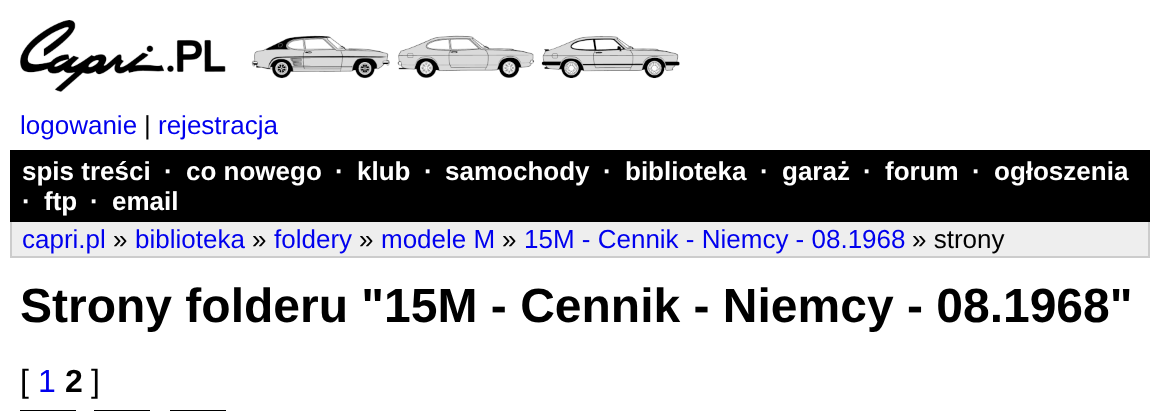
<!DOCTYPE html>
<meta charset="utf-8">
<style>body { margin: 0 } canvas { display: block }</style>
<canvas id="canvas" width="1160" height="411"></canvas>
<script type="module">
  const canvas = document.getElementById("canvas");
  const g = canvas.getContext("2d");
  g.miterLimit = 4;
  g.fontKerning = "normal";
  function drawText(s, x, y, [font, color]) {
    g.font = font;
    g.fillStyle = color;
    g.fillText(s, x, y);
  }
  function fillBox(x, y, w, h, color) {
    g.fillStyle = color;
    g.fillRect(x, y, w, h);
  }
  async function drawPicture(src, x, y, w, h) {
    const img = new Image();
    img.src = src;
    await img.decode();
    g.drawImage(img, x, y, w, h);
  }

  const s1 = ["26px Liberation Sans", "#0000EE"];
  const s2 = ["26px Liberation Sans", "#000000"];
  const s3 = ["bold 26px Liberation Sans", "#FFFFFF"];
  const s4 = ["bold 48px Liberation Sans", "#000000"];
  const s5 = ["32px Liberation Sans", "#000000"];
  const s6 = ["32px Liberation Sans", "#0000EE"];
  const s7 = ["bold 32px Liberation Sans", "#000000"];

  fillBox(0, 0, 1160, 411, "#FFFFFF");
  await drawPicture("pic1.png", 20, 20, 660, 72);
  drawText("logowanie", 20, 134, s1);
  drawText("|", 144, 134, s2);
  drawText("rejestracja", 158, 134, s1);
  fillBox(10, 150, 1140, 72, "#000000");
  drawText("spis treści", 22, 180, s3);
  drawText("·", 164, 180, s3);
  drawText("co nowego", 186, 180, s3);
  drawText("·", 335, 180, s3);
  drawText("klub", 357, 180, s3);
  drawText("·", 424, 180, s3);
  drawText("samochody", 445, 180, s3);
  drawText("·", 603, 180, s3);
  drawText("biblioteka", 625, 180, s3);
  drawText("·", 760, 180, s3);
  drawText("garaż", 782, 180, s3);
  drawText("·", 863, 180, s3);
  drawText("forum", 885, 180, s3);
  drawText("·", 972, 180, s3);
  drawText("ogłoszenia", 994, 180, s3);
  drawText("·", 22, 210, s3);
  drawText("ftp", 44, 210, s3);
  drawText("·", 90, 210, s3);
  drawText("email", 112, 210, s3);
  fillBox(12, 222, 1136, 34, "#EEEEEE");
  fillBox(1148, 222, 2, 36, "#CCCCCC");
  fillBox(10, 256, 1140, 2, "#CCCCCC");
  fillBox(10, 222, 2, 36, "#CCCCCC");
  drawText("capri.pl", 22, 248, s1);
  drawText("»", 113, 248, s2);
  drawText("biblioteka", 135, 248, s1);
  drawText("»", 252, 248, s2);
  drawText("foldery", 274, 248, s1);
  drawText("»", 359, 248, s2);
  drawText("modele M", 381, 248, s1);
  drawText("»", 502, 248, s2);
  drawText("15M - Cennik - Niemcy - 08.1968", 524, 248, s1);
  drawText("» strony", 912, 248, s2);
  drawText("Strony folderu \"15M - Cennik - Niemcy - 08.1968\"", 20, 322, s4);
  drawText("[", 20, 392, s5);
  drawText("1", 38, 392, s6);
  drawText("2", 65, 392, s7);
  drawText("]", 91, 392, s5);
  g.strokeStyle = "#000000";
  g.lineWidth = 2;
  g.strokeRect(21, 411, 54, 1);
  g.strokeRect(95, 411, 54, 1);
  g.strokeRect(171, 411, 54, 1);
</script>
